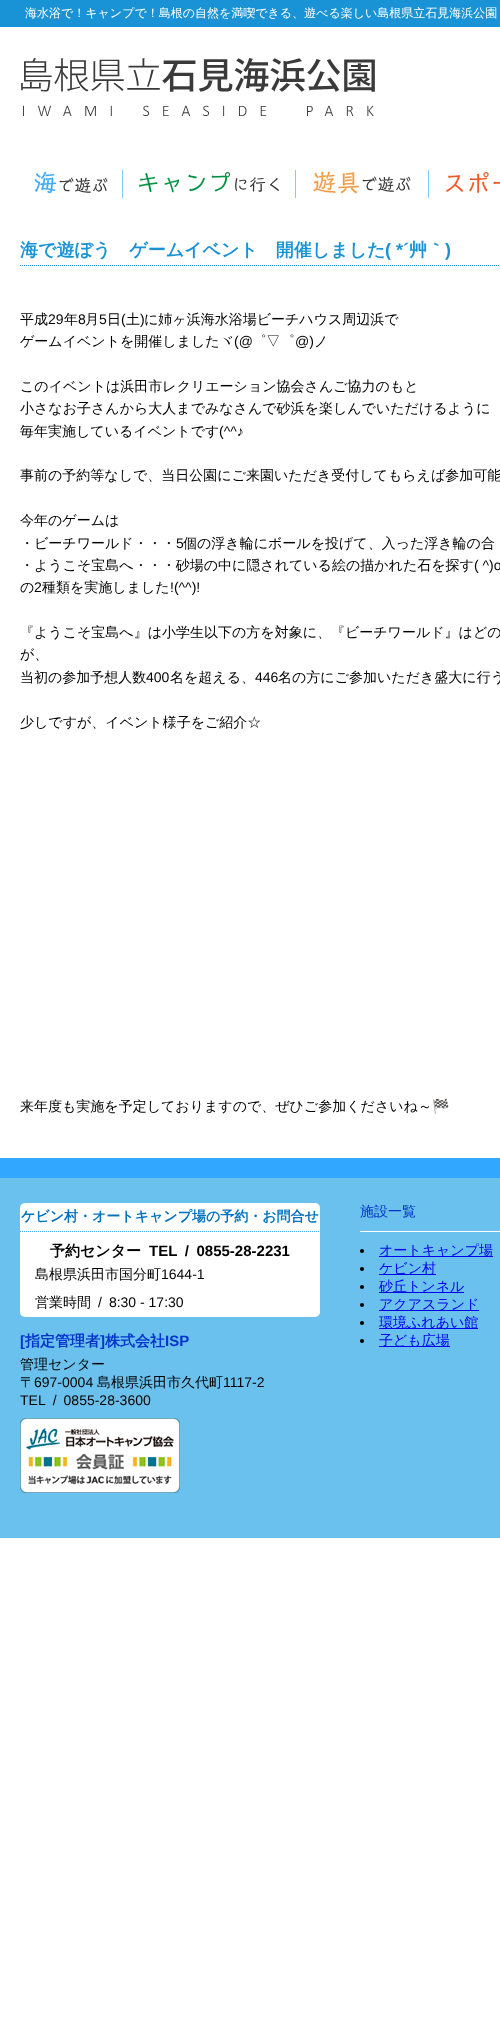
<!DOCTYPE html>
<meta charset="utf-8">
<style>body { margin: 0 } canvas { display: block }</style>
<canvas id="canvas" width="500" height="2028"></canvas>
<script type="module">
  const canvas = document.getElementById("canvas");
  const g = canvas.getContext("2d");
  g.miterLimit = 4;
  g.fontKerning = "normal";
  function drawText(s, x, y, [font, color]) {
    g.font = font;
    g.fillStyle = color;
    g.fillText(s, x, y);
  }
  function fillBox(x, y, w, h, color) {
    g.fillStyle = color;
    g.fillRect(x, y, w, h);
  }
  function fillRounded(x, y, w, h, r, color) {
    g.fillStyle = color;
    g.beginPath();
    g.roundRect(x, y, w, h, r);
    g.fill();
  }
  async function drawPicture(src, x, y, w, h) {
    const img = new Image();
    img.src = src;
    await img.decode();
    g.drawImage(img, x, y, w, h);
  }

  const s1 = ["500 12px WenQuanYi Zen Hei", "#FFFFFF"];
  const s2 = ["bold 18px WenQuanYi Zen Hei", "#1A93D6"];
  const s3 = ["bold 18px Liberation Sans", "#1A93D6"];
  const s4 = ["500 14px WenQuanYi Zen Hei", "#000000"];
  const s5 = ["14px Liberation Sans", "#000000"];
  const s6 = ["14px Noto Color Emoji", "#000000"];
  const s7 = ["bold 14px WenQuanYi Zen Hei", "#0071BC"];
  const s8 = ["bold 15px WenQuanYi Zen Hei", "#000000"];
  const s9 = ["bold 15px Liberation Sans", "#000000"];
  const s10 = ["bold 15px Liberation Sans", "#0033CC"];
  const s11 = ["bold 15px WenQuanYi Zen Hei", "#0033CC"];
  const s12 = ["500 14px WenQuanYi Zen Hei", "#0033CC"];
  const s13 = ["500 14px WenQuanYi Zen Hei", "#0000EE"];

  fillBox(0, 0, 500, 2028, "#FFFFFF");
  fillBox(0, 0, 500, 27, "#1A93D6");
  drawText("海水浴で！キャンプで！島根の自然を満喫できる、遊べる楽しい島根県立石見海浜公園", 25, 17, s1);
  await drawPicture("pic1.png", 21, 58, 354, 58);
  await drawPicture("pic2.png", 34, 171, 74, 23);
  fillBox(122, 170, 1, 28, "#7DCAFF");
  await drawPicture("pic3.png", 139, 171, 140, 22);
  fillBox(295, 170, 1, 28, "#7DCAFF");
  await drawPicture("pic4.png", 313, 171, 98, 23);
  fillBox(428, 170, 1, 28, "#7DCAFF");
  await drawPicture("pic5.png", 446, 171, 54, 22);
  g.beginPath();
  g.moveTo(20, 265.5);
  g.lineTo(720, 265.5);
  g.strokeStyle = "#1A93D6";
  g.setLineDash([1, 1]);
  g.stroke();
  drawText("海で遊ぼう　ゲームイベント　開催しました", 20, 256, s2);
  drawText("( *´", 385, 256, s3);
  drawText("艸｀", 409, 256, s2);
  drawText(")", 445, 256, s3);
  drawText("平成", 20, 324, s4);
  drawText("29", 48, 324, s5);
  drawText("年", 64, 324, s4);
  drawText("8", 78, 324, s5);
  drawText("月", 85, 324, s4);
  drawText("5", 99, 324, s5);
  drawText("日", 107, 324, s4);
  drawText("(", 121, 324, s5);
  drawText("土", 126, 324, s4);
  drawText(")", 140, 324, s5);
  drawText("に姉ヶ浜海水浴場ビーチハウス周辺浜で", 144, 324, s4);
  drawText("ゲームイベントを開催しましたヾ", 20, 346, s4);
  drawText("(@", 234, 346, s5);
  drawText("゜▽゜", 252, 346, s4);
  drawText("@)", 295, 346, s5);
  drawText("ノ", 314, 346, s4);
  drawText("このイベントは浜田市レクリエーション協会さんご協力のもと", 20, 391, s4);
  drawText("小さなお子さんから大人までみなさんで砂浜を楽しんでいただけるように", 20, 413, s4);
  drawText("毎年実施しているイベントです", 20, 436, s4);
  drawText("(^^♪", 219, 436, s5);
  drawText("事前の予約等なしで、当日公園にご来園いただき受付してもらえば参加可能", 20, 480, s4);
  drawText("今年のゲームは", 20, 525, s4);
  drawText("・ビーチワールド・・・", 20, 548, s4);
  drawText("5", 176, 548, s5);
  drawText("個の浮き輪にボールを投げて、入った浮き輪の合", 183, 548, s4);
  drawText("・ようこそ宝島へ・・・砂場の中に隠されている絵の描かれた石を探す", 20, 570, s4);
  drawText("( ^)o", 474, 570, s5);
  drawText("の", 20, 592, s4);
  drawText("2", 34, 592, s5);
  drawText("種類を実施しました", 42, 592, s4);
  drawText("!(^^)!", 170, 592, s5);
  drawText("『ようこそ宝島へ』は小学生以下の方を対象に、『ビーチワールド』はどの", 20, 637, s4);
  drawText("が、", 20, 659, s4);
  drawText("当初の参加予想人数", 20, 682, s4);
  drawText("400", 146, 682, s5);
  drawText("名を超える、", 170, 682, s4);
  drawText("446", 255, 682, s5);
  drawText("名の方にご参加いただき盛大に行う", 278, 682, s4);
  drawText("少しですが、イベント様子をご紹介☆", 20, 727, s4);
  drawText("来年度も実施を予定しておりますので、ぜひご参加くださいね～", 20, 1111, s4);
  drawText("🏁", 432, 1111, s6);
  fillBox(0, 1178, 500, 360, "#6BC1ED");
  fillBox(0, 1158, 500, 20, "#31A7FF");
  fillRounded(20, 1203, 300, 114, 5, "#FFFFFF");
  g.beginPath();
  g.moveTo(20, 1231.5);
  g.lineTo(320, 1231.5);
  g.strokeStyle = "#3FA9F5";
  g.stroke();
  drawText("ケビン村・オートキャンプ場の予約・お問合せ", 21, 1221, s7);
  drawText("予約センター", 50, 1256, s8);
  drawText("TEL / 0855-28-2231", 149, 1256, s9);
  drawText("島根県浜田市国分町", 35, 1279, s4);
  drawText("1644-1", 161, 1279, s5);
  drawText("営業時間", 35, 1307, s4);
  drawText("/ 8:30 - 17:30", 98, 1307, s5);
  drawText("[", 20, 1346, s10);
  drawText("指定管理者", 25, 1346, s11);
  drawText("]", 100, 1346, s10);
  drawText("株式会社", 105, 1346, s11);
  drawText("ISP", 165, 1346, s10);
  drawText("管理センター", 20, 1369, s4);
  drawText("〒", 20, 1387, s4);
  drawText("697-0004", 34, 1387, s5);
  drawText("島根県浜田市久代町", 97, 1387, s4);
  drawText("1117-2", 223, 1387, s5);
  drawText("TEL / 0855-28-3600", 20, 1405, s5);
  await drawPicture("pic6.png", 20, 1418, 160, 75);
  fillBox(360, 1231, 140, 1, "#FFFFFF");
  drawText("施設一覧", 360, 1216, s12);
  g.fillStyle = "#000000";
  g.beginPath();
  g.arc(362, 1251, 2, 0, Math.PI * 2);
  g.fill();
  fillBox(379, 1256, 114, 1, "#0000EE");
  drawText("オートキャンプ場", 379, 1255, s13);
  g.fillStyle = "#000000";
  g.beginPath();
  g.arc(362, 1269, 2, 0, Math.PI * 2);
  g.fill();
  fillBox(379, 1274, 57, 1, "#0000EE");
  drawText("ケビン村", 379, 1273, s13);
  g.fillStyle = "#000000";
  g.beginPath();
  g.arc(362, 1287, 2, 0, Math.PI * 2);
  g.fill();
  fillBox(379, 1292, 85, 1, "#0000EE");
  drawText("砂丘トンネル", 379, 1291, s13);
  g.fillStyle = "#000000";
  g.beginPath();
  g.arc(362, 1305, 2, 0, Math.PI * 2);
  g.fill();
  fillBox(379, 1310, 100, 1, "#0000EE");
  drawText("アクアスランド", 379, 1309, s13);
  g.fillStyle = "#000000";
  g.beginPath();
  g.arc(362, 1323, 2, 0, Math.PI * 2);
  g.fill();
  fillBox(379, 1328, 99, 1, "#0000EE");
  drawText("環境ふれあい館", 379, 1327, s13);
  g.fillStyle = "#000000";
  g.beginPath();
  g.arc(362, 1341, 2, 0, Math.PI * 2);
  g.fill();
  fillBox(379, 1346, 71, 1, "#0000EE");
  drawText("子ども広場", 379, 1345, s13);
</script>
